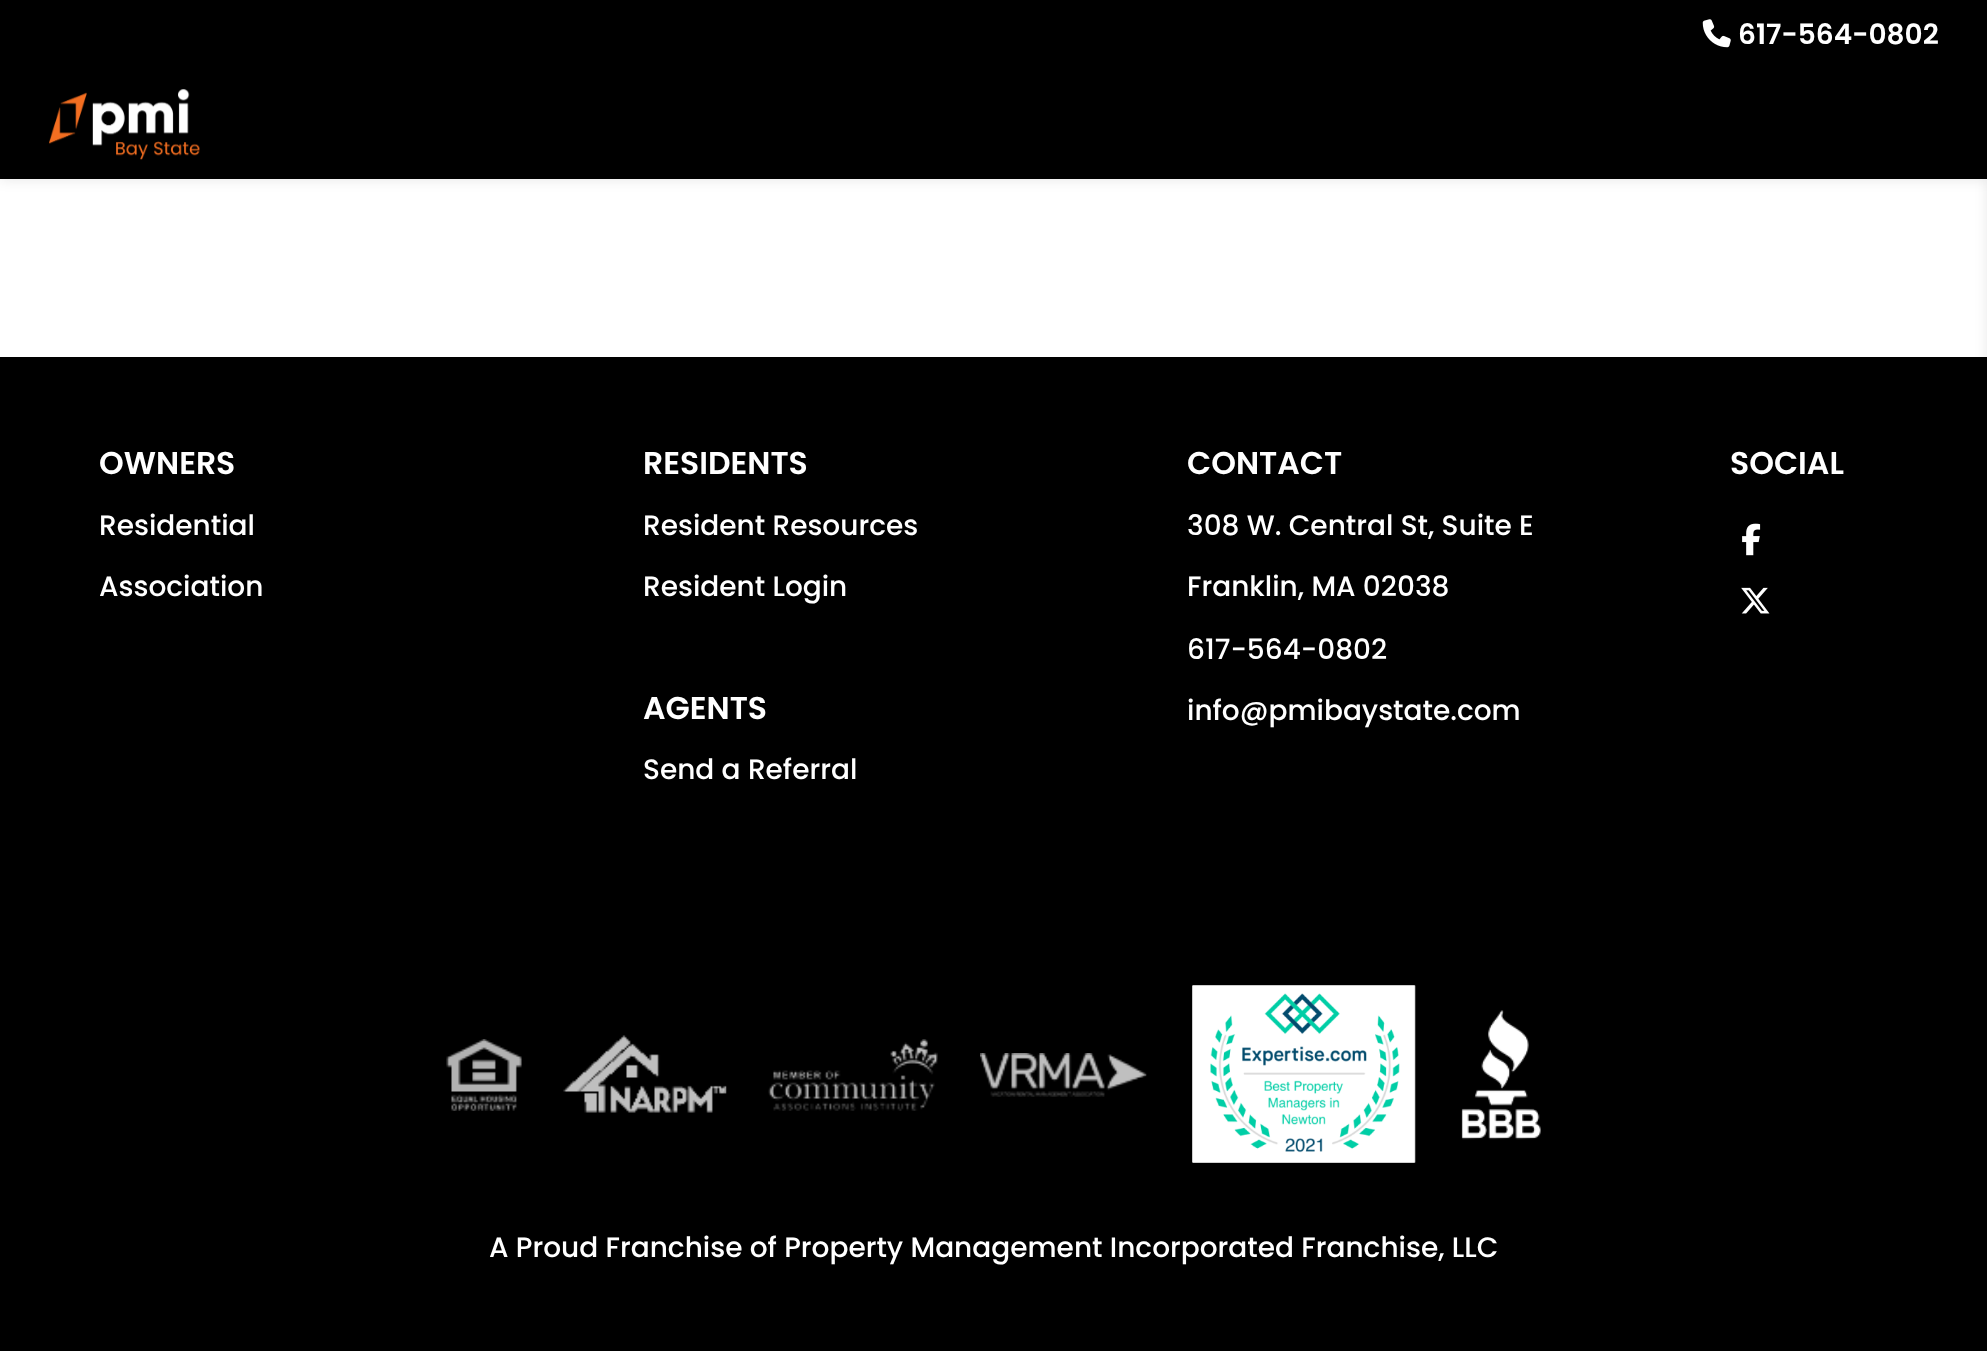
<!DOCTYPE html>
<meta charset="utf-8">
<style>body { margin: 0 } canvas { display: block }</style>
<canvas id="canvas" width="1987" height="1351"></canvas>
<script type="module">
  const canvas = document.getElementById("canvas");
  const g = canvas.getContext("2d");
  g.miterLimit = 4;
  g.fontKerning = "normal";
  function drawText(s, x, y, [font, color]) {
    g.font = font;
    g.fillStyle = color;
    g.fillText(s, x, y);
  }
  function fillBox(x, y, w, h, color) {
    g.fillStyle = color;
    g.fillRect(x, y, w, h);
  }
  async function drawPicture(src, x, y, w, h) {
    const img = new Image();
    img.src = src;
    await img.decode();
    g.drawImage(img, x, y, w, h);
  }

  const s1 = ["600 28px Poppins", "#FFFFFF"];
  const s2 = ["600 31.5px Poppins", "#FFFFFF"];
  const s3 = ["500 28px Poppins", "#FFFFFF"];

  fillBox(0, 0, 1987, 1351, "#FFFFFF");
  g.fillStyle = "rgba(0, 0, 0, 0.1)";
  g.filter = "blur(7px)";
  g.beginPath();
  g.rect(0, 0, 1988, 179);
  g.fill();
  g.filter = "none";
  fillBox(0, 0, 1987, 179, "#000000");
  await drawPicture("pic1.png", 1702, 19, 29, 29);
  drawText("617-564-0802", 1738, 44, s1);
  await drawPicture("pic2.png", 49, 89, 151, 71);
  fillBox(0, 357, 1987, 994, "#000000");
  g.fillStyle = "rgba(0, 0, 0, 0.1)";
  g.filter = "blur(7px)";
  g.beginPath();
  g.rect(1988, 0, 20, 1351);
  g.fill();
  g.filter = "none";
  drawText("OWNERS", 99, 474, s2);
  drawText("Residential", 99, 535, s3);
  drawText("Association", 99, 596, s3);
  drawText("RESIDENTS", 643, 474, s2);
  drawText("Resident Resources", 643, 535, s3);
  drawText("Resident Login", 643, 596, s3);
  drawText("AGENTS", 643, 719, s2);
  drawText("Send a Referral", 643, 779, s3);
  drawText("CONTACT", 1187, 474, s2);
  drawText("308 W. Central St, Suite E", 1187, 535, s3);
  drawText("Franklin, MA 02038", 1187, 596, s3);
  drawText("617-564-0802", 1187, 659, s3);
  drawText("info@pmibaystate.com", 1187, 720, s3);
  drawText("SOCIAL", 1730, 474, s2);
  await drawPicture("pic3.png", 1742, 523, 19, 33);
  await drawPicture("pic4.png", 1741, 587, 29, 27);
  await drawPicture("pic5.png", 446, 1039, 76, 72);
  await drawPicture("pic6.png", 563, 1035, 164, 78);
  await drawPicture("pic7.png", 768, 1039, 170, 72);
  await drawPicture("pic8.png", 980, 1053, 167, 44);
  await drawPicture("pic9.png", 1192, 985, 224, 178);
  await drawPicture("pic10.png", 1461, 1010, 80, 130);
  drawText("A Proud Franchise of Property Management Incorporated Franchise, LLC", 489, 1257, s3);
</script>
